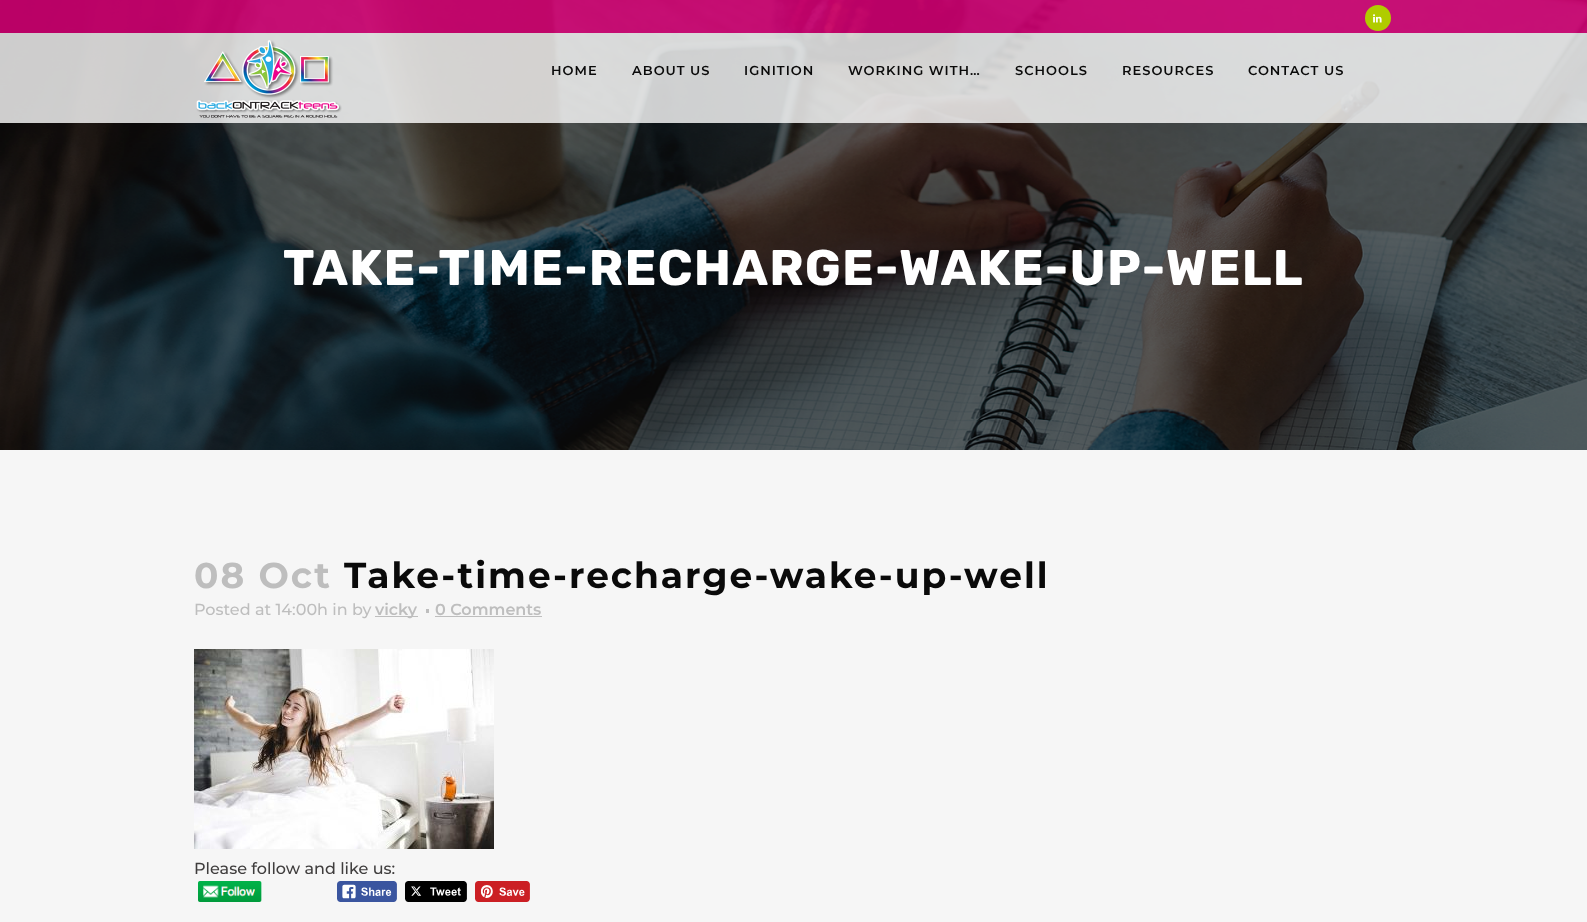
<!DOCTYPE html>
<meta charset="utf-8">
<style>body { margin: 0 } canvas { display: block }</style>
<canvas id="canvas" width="1587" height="922"></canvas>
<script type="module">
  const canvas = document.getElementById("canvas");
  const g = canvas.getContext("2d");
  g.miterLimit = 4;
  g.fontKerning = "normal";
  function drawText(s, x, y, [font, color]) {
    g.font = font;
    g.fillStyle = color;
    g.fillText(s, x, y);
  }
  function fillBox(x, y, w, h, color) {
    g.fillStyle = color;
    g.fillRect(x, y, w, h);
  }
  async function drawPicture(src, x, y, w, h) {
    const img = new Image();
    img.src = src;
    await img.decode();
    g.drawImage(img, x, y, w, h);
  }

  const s1 = ["600 13px Montserrat", "#0A0A0A"];
  const s2 = ["bold 50px Rubik", "#FFFFFF"];
  const s3 = ["bold 36px Montserrat", "#BEBEBE"];
  const s4 = ["bold 36px Montserrat", "#0A0A0A"];
  const s5 = ["500 16px Montserrat", "#BEBEBE"];
  const s6 = ["600 16px Montserrat", "#BEBEBE"];
  const s7 = ["500 16px Montserrat", "#3F3D3D"];

  fillBox(0, 0, 1587, 922, "#F6F6F6");
  await drawPicture("pic3.png", 0, 0, 1587, 450);
  fillBox(0, 0, 1587, 33, "rgba(230, 0, 126, 0.8)");
  g.fillStyle = "#B0CC00";
  g.beginPath();
  g.arc(1378, 18, 13, 0, Math.PI * 2);
  g.fill();
  await drawPicture("pic1.png", 1373, 14, 9, 9);
  fillBox(0, 33, 1587, 90, "rgba(255, 255, 255, 0.8)");
  await drawPicture("pic2.png", 196, 40, 146, 78);
  g.letterSpacing = "1px";
  drawText("HOME", 551, 75, s1);
  drawText("ABOUT US", 632, 75, s1);
  drawText("IGNITION", 744, 75, s1);
  drawText("WORKING WITH…", 848, 75, s1);
  drawText("SCHOOLS", 1015, 75, s1);
  drawText("RESOURCES", 1122, 75, s1);
  drawText("CONTACT US", 1248, 75, s1);
  g.letterSpacing = "1.2px";
  drawText("TAKE-TIME-RECHARGE-WAKE-UP-WELL", 283, 285, s2);
  g.letterSpacing = "2px";
  drawText("08 Oct", 194, 588, s3);
  drawText("Take-time-recharge-wake-up-well", 344, 588, s4);
  g.letterSpacing = "0px";
  drawText("Posted at 14:00h in by", 194, 615, s5);
  fillBox(375, 616, 43, 1, "#BEBEBE");
  drawText("vicky", 375, 615, s6);
  fillBox(426, 609, 3, 4, "#BEBEBE");
  drawText("0 Comments", 435, 615, s6);
  fillBox(435, 616, 107, 1, "#BEBEBE");
  await drawPicture("pic4.png", 194, 649, 300, 200);
  drawText("Please follow and like us:", 194, 874, s7);
  await drawPicture("pic5.png", 198, 881, 64, 21);
  await drawPicture("pic6.png", 337, 881, 60, 21);
  await drawPicture("pic7.png", 405, 881, 62, 21);
  await drawPicture("pic8.png", 475, 881, 55, 21);
</script>
